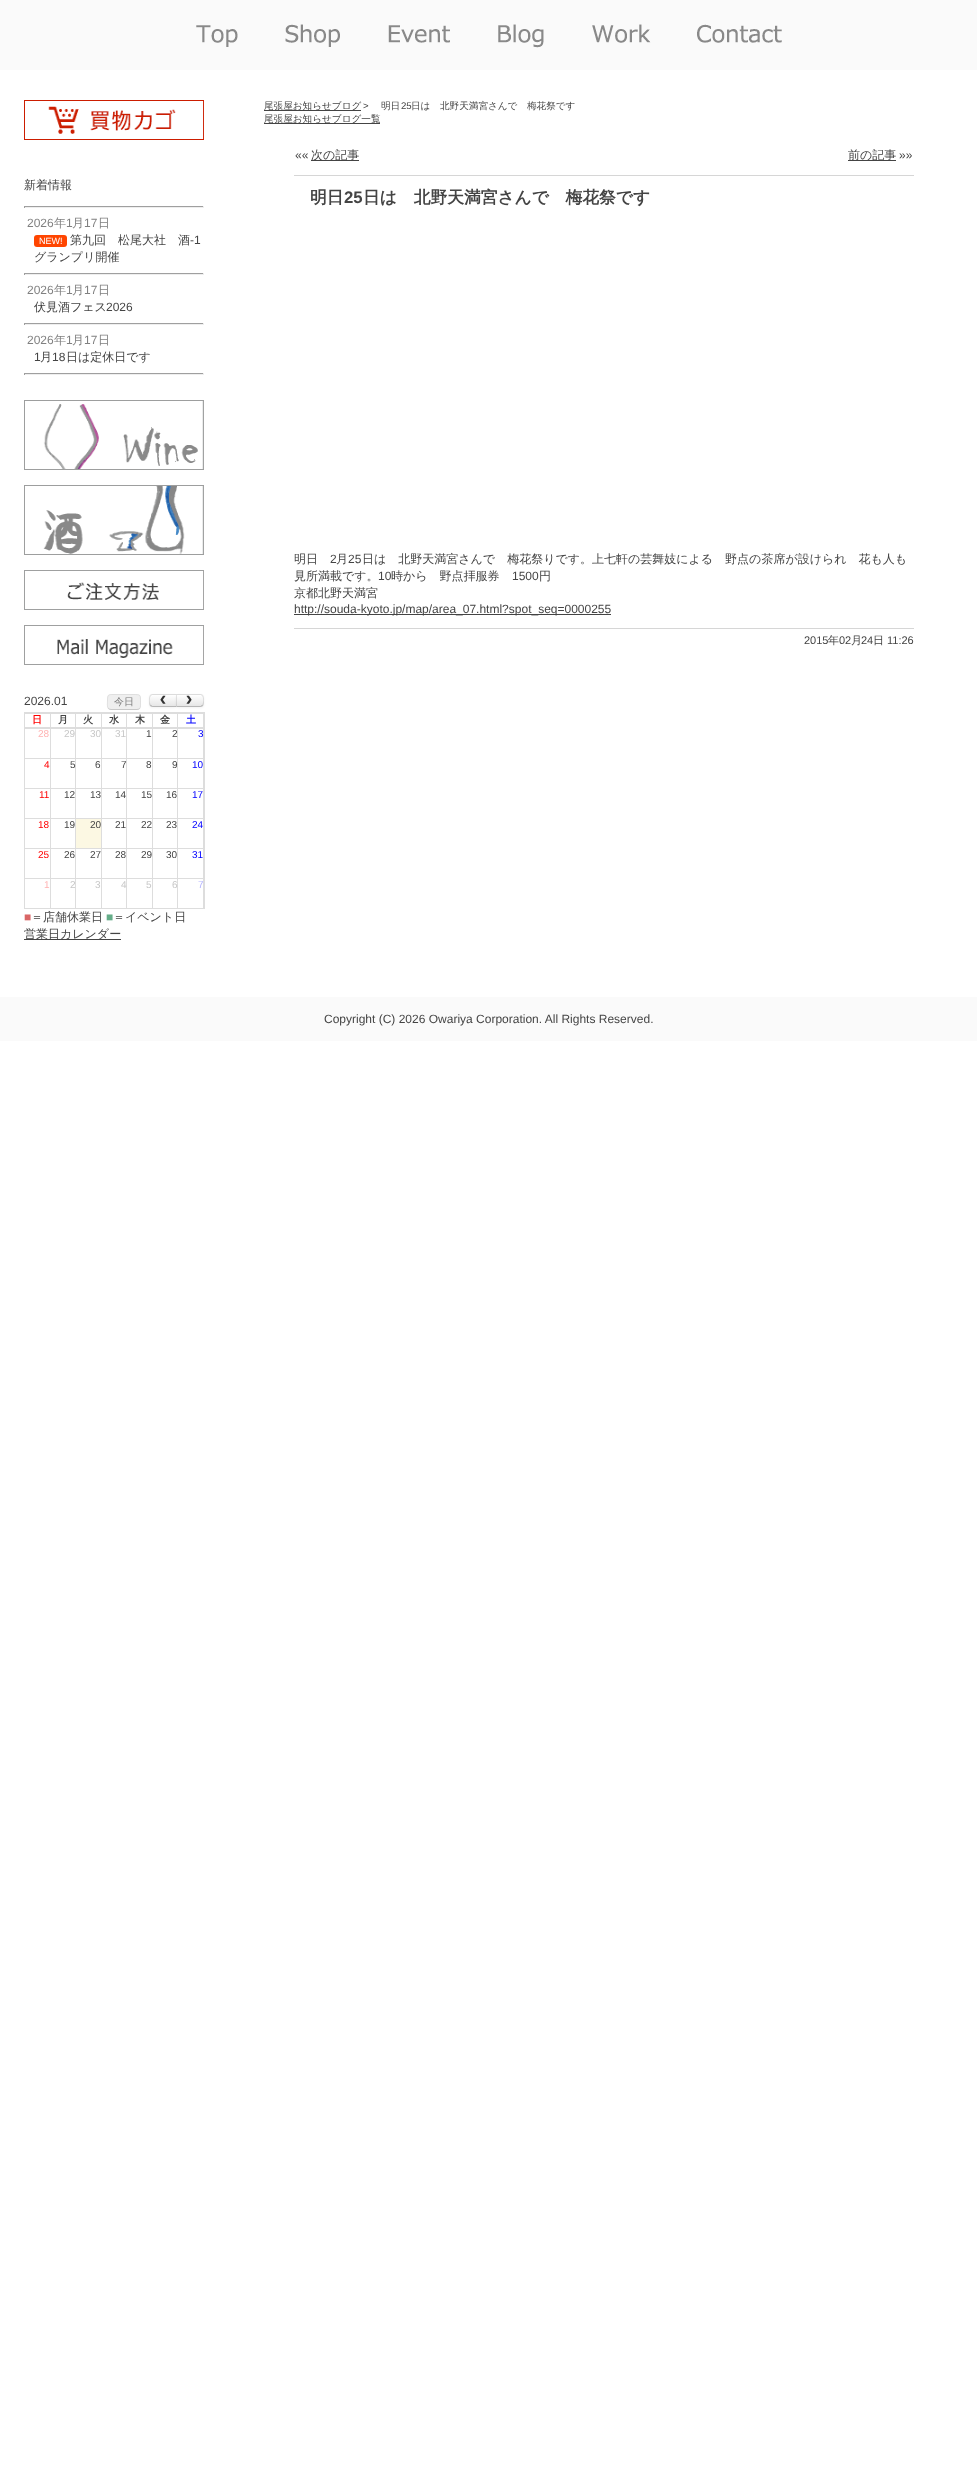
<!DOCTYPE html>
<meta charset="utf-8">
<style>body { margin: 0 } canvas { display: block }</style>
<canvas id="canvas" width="977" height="2482"></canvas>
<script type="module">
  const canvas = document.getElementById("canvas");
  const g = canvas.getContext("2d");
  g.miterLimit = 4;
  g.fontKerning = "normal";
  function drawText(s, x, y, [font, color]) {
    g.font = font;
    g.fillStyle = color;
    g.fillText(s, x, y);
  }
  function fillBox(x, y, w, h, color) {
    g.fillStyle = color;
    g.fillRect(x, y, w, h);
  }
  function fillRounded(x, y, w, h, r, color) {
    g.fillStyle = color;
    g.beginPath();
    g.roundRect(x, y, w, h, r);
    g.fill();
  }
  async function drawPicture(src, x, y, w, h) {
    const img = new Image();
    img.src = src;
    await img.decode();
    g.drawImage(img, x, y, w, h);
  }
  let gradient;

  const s1 = ["500 12px WenQuanYi Zen Hei", "#444444"];
  const s2 = ["12px Liberation Sans", "#808080"];
  const s3 = ["500 12px WenQuanYi Zen Hei", "#808080"];
  const s4 = ["9px Liberation Sans", "#FFFFFF"];
  const s5 = ["12px Liberation Sans", "#444444"];
  const s6 = ["500 10px WenQuanYi Zen Hei", "#7A7A7A"];
  const s7 = ["bold 20px Liberation Mono", "#333333"];
  const s8 = ["bold 10px WenQuanYi Zen Hei", "#FF0000"];
  const s9 = ["bold 10px WenQuanYi Zen Hei", "#444444"];
  const s10 = ["bold 10px WenQuanYi Zen Hei", "#0000FF"];
  const s11 = ["10px Liberation Sans", "#FFB3B3"];
  const s12 = ["10px Liberation Sans", "#C7C7C7"];
  const s13 = ["10px Liberation Sans", "#444444"];
  const s14 = ["10px Liberation Sans", "#0000FF"];
  const s15 = ["10px Liberation Sans", "#FF0000"];
  const s16 = ["10px Liberation Sans", "#B3B3FF"];
  const s17 = ["12px Liberation Sans", "#D96666"];
  const s18 = ["12px Liberation Sans", "#65AD89"];
  const s19 = ["500 9.6px WenQuanYi Zen Hei", "#444444"];
  const s20 = ["9.6px Liberation Sans", "#444444"];
  const s21 = ["bold 16.75px WenQuanYi Zen Hei", "#444444"];
  const s22 = ["bold 16.75px Liberation Sans", "#444444"];
  const s23 = ["11px Liberation Sans", "#444444"];
  const s24 = ["500 11px WenQuanYi Zen Hei", "#444444"];

  fillBox(0, 0, 977, 2482, "#FFFFFF");
  fillBox(0, 0, 977, 70, "#FAFAFA");
  await drawPicture("pic1.png", 196, 24, 586, 24);
  await drawPicture("pic2.png", 24, 100, 180, 40);
  drawText("新着情報", 24, 189, s1);
  fillBox(24, 206, 180, 1, "#9F9F9F");
  fillBox(203, 206, 1, 2, "#EEEEEE");
  fillBox(24, 207, 180, 1, "#EEEEEE");
  fillBox(24, 206, 1, 2, "#9F9F9F");
  drawText("2026", 27, 227, s2);
  drawText("年", 54, 227, s3);
  drawText("1", 66, 227, s2);
  drawText("月", 72, 227, s3);
  drawText("17", 84, 227, s2);
  drawText("日", 98, 227, s3);
  fillRounded(34, 235, 33, 12, 3, "#FF4500");
  drawText("NEW!", 39, 244, s4);
  drawText("第九回　松尾大社　酒", 70, 244, s1);
  drawText("-1", 190, 244, s5);
  drawText("グランプリ開催", 34, 261, s1);
  fillBox(24, 273, 180, 1, "#9F9F9F");
  fillBox(203, 273, 1, 2, "#EEEEEE");
  fillBox(24, 274, 180, 1, "#EEEEEE");
  fillBox(24, 273, 1, 2, "#9F9F9F");
  drawText("2026", 27, 294, s2);
  drawText("年", 54, 294, s3);
  drawText("1", 66, 294, s2);
  drawText("月", 72, 294, s3);
  drawText("17", 84, 294, s2);
  drawText("日", 98, 294, s3);
  drawText("伏見酒フェス", 34, 311, s1);
  drawText("2026", 106, 311, s5);
  fillBox(24, 323, 180, 1, "#9F9F9F");
  fillBox(203, 323, 1, 2, "#EEEEEE");
  fillBox(24, 324, 180, 1, "#EEEEEE");
  fillBox(24, 323, 1, 2, "#9F9F9F");
  drawText("2026", 27, 344, s2);
  drawText("年", 54, 344, s3);
  drawText("1", 66, 344, s2);
  drawText("月", 72, 344, s3);
  drawText("17", 84, 344, s2);
  drawText("日", 98, 344, s3);
  drawText("1", 34, 361, s5);
  drawText("月", 40, 361, s1);
  drawText("18", 52, 361, s5);
  drawText("日は定休日です", 66, 361, s1);
  fillBox(24, 373, 180, 1, "#9F9F9F");
  fillBox(203, 373, 1, 2, "#EEEEEE");
  fillBox(24, 374, 180, 1, "#EEEEEE");
  fillBox(24, 373, 1, 2, "#9F9F9F");
  await drawPicture("pic3.png", 24, 400, 180, 70);
  await drawPicture("pic4.png", 24, 485, 180, 70);
  await drawPicture("pic5.png", 24, 570, 180, 40);
  await drawPicture("pic6.png", 24, 625, 180, 40);
  drawText("2026.01", 24, 705, s5);
  fillRounded(107, 694, 34, 16, 4, "#EFEFEF");
  g.beginPath();
  g.moveTo(139.5, 708.5);
  g.bezierCurveTo(139, 709, 138, 709.5, 137, 709.5);
  g.lineTo(111, 709.5);
  g.bezierCurveTo(110, 709.5, 109, 709, 108.5, 708.5);
  g.strokeStyle = "rgba(89, 89, 89, 0.25)";
  g.stroke();
  g.beginPath();
  g.moveTo(108.5, 708.5);
  g.bezierCurveTo(106.5, 706.5, 107.5, 703, 107.5, 700.5);
  g.bezierCurveTo(107.5, 694, 109, 694.5, 115.5, 694.5);
  g.lineTo(132.5, 694.5);
  g.bezierCurveTo(140.5, 694.5, 140.5, 694.5, 140.5, 702);
  g.bezierCurveTo(140.5, 704, 141, 707, 139.5, 708.5);
  g.strokeStyle = "rgba(89, 89, 89, 0.1)";
  g.stroke();
  drawText("今日", 114, 705, s6);
  g.fillStyle = "rgba(0, 0, 0, 0.05)";
  g.filter = "blur(1px)";
  g.beginPath();
  g.roundRect(149, 695, 28, 13, 4);
  g.fill();
  g.filter = "none";
  g.fillStyle = "#F5F5F5";
  g.beginPath();
  g.roundRect(149, 694, 28, 13, [4, 0, 0, 4]);
  g.fill();
  g.save();
  g.beginPath();
  g.roundRect(149, 694, 28, 13, [4, 0, 0, 4]);
  g.clip();
  gradient = g.createLinearGradient(163, 695, 163, 706);
  gradient.addColorStop(0, "#FFFFFF");
  gradient.addColorStop(1, "#E6E6E6");
  g.fillStyle = gradient;
  g.fillRect(149, 695, 27, 11);
  g.restore();
  g.fillStyle = "#FEFEFE";
  g.beginPath();
  g.moveTo(153, 696);
  g.lineTo(176, 696);
  g.lineTo(176, 695);
  g.lineTo(157, 695);
  g.bezierCurveTo(152, 695, 150, 694.5, 150, 699.5);
  g.lineTo(150, 704);
  g.bezierCurveTo(149.5, 701.5, 149.5, 696, 153, 696);
  g.closePath();
  g.fill();
  g.fillStyle = "rgba(0, 0, 0, 0.1)";
  g.beginPath();
  g.moveTo(153, 694);
  g.bezierCurveTo(152, 694, 151, 694.5, 150, 695);
  g.lineTo(151, 696);
  g.bezierCurveTo(151.5, 695.5, 152, 695, 153, 695);
  g.lineTo(176, 695);
  g.lineTo(177, 694);
  g.closePath();
  g.fill();
  g.fillStyle = "rgba(0, 0, 0, 0.25)";
  g.beginPath();
  g.moveTo(177, 707);
  g.lineTo(176, 706);
  g.lineTo(153, 706);
  g.bezierCurveTo(152, 706, 151.5, 705.5, 151, 705);
  g.lineTo(150, 706);
  g.bezierCurveTo(151, 706.5, 152, 707, 153, 707);
  g.closePath();
  g.fill();
  g.fillStyle = "rgba(0, 0, 0, 0.1)";
  g.beginPath();
  g.moveTo(149, 698);
  g.bezierCurveTo(149, 700.5, 148.5, 704, 150, 706);
  g.lineTo(151, 705);
  g.bezierCurveTo(149.5, 703.5, 149.5, 697.5, 151, 696);
  g.lineTo(150, 695);
  g.bezierCurveTo(149.5, 696, 149, 697, 149, 698);
  g.closePath();
  g.fill();
  drawText("‹", 157, 705, s7);
  g.fillStyle = "rgba(0, 0, 0, 0.05)";
  g.filter = "blur(1px)";
  g.beginPath();
  g.roundRect(176, 695, 28, 13, 4);
  g.fill();
  g.filter = "none";
  g.fillStyle = "#F5F5F5";
  g.beginPath();
  g.roundRect(176, 694, 28, 13, [0, 4, 4, 0]);
  g.fill();
  g.save();
  g.beginPath();
  g.roundRect(176, 694, 28, 13, [0, 4, 4, 0]);
  g.clip();
  gradient = g.createLinearGradient(190, 695, 190, 706);
  gradient.addColorStop(0, "#FFFFFF");
  gradient.addColorStop(1, "#E6E6E6");
  g.fillStyle = gradient;
  g.fillRect(176, 695, 28, 11);
  g.restore();
  g.fillStyle = "rgba(0, 0, 0, 0.1)";
  g.beginPath();
  g.moveTo(176, 694);
  g.lineTo(177, 695);
  g.lineTo(200, 695);
  g.bezierCurveTo(201, 695, 201.5, 695.5, 202, 696);
  g.lineTo(203, 695);
  g.bezierCurveTo(202, 694.5, 201, 694, 200, 694);
  g.closePath();
  g.fill();
  g.beginPath();
  g.moveTo(204, 703);
  g.bezierCurveTo(204, 700.5, 204.5, 697, 203, 695);
  g.lineTo(202, 696);
  g.bezierCurveTo(203.5, 697.5, 203.5, 703.5, 202, 705);
  g.lineTo(203, 706);
  g.bezierCurveTo(203.5, 705, 204, 704, 204, 703);
  g.closePath();
  g.fill();
  g.fillStyle = "rgba(0, 0, 0, 0.25)";
  g.beginPath();
  g.moveTo(200, 707);
  g.bezierCurveTo(201, 707, 202, 706.5, 203, 706);
  g.lineTo(202, 705);
  g.bezierCurveTo(201.5, 705.5, 201, 706, 200, 706);
  g.lineTo(177, 706);
  g.lineTo(176, 707);
  g.closePath();
  g.fill();
  g.fillStyle = "rgba(0, 0, 0, 0.1)";
  g.beginPath();
  g.moveTo(176, 694);
  g.lineTo(176, 707);
  g.lineTo(177, 706);
  g.lineTo(177, 695);
  g.closePath();
  g.fill();
  drawText("›", 183, 705, s7);
  fillBox(24, 712, 181, 1, "#DDDDDD");
  fillBox(24, 727, 181, 1, "#DDDDDD");
  fillBox(204, 727, 1, 182, "#DDDDDD");
  fillBox(204, 712, 1, 16, "#DDDDDD");
  fillBox(24, 908, 181, 1, "#DDDDDD");
  fillBox(24, 727, 1, 182, "#DDDDDD");
  fillBox(24, 712, 1, 16, "#DDDDDD");
  fillBox(177, 713, 27, 1, "#DDDDDD");
  fillBox(177, 713, 1, 15, "#DDDDDD");
  fillBox(152, 713, 26, 1, "#DDDDDD");
  fillBox(152, 713, 1, 15, "#DDDDDD");
  fillBox(126, 713, 27, 1, "#DDDDDD");
  fillBox(126, 713, 1, 15, "#DDDDDD");
  fillBox(101, 713, 26, 1, "#DDDDDD");
  fillBox(101, 713, 1, 15, "#DDDDDD");
  fillBox(75, 713, 27, 1, "#DDDDDD");
  fillBox(75, 713, 1, 15, "#DDDDDD");
  fillBox(50, 713, 26, 1, "#DDDDDD");
  fillBox(50, 713, 1, 15, "#DDDDDD");
  fillBox(24, 713, 27, 1, "#DDDDDD");
  drawText("日", 32, 723, s8);
  drawText("月", 58, 723, s9);
  drawText("火", 83, 723, s9);
  drawText("水", 109, 723, s9);
  drawText("木", 135, 723, s9);
  drawText("金", 160, 723, s9);
  fillBox(203, 713, 1, 15, "#DDDDDD");
  drawText("土", 186, 723, s10);
  fillBox(177, 728, 27, 1, "#DDDDDD");
  fillBox(203, 728, 1, 31, "#DDDDDD");
  fillBox(177, 758, 27, 1, "#DDDDDD");
  fillBox(177, 728, 1, 31, "#DDDDDD");
  fillBox(152, 728, 26, 1, "#DDDDDD");
  fillBox(152, 758, 26, 1, "#DDDDDD");
  fillBox(152, 728, 1, 31, "#DDDDDD");
  fillBox(126, 728, 27, 1, "#DDDDDD");
  fillBox(126, 758, 27, 1, "#DDDDDD");
  fillBox(126, 728, 1, 31, "#DDDDDD");
  fillBox(101, 728, 26, 1, "#DDDDDD");
  fillBox(101, 758, 26, 1, "#DDDDDD");
  fillBox(101, 728, 1, 31, "#DDDDDD");
  fillBox(75, 728, 27, 1, "#DDDDDD");
  fillBox(75, 758, 27, 1, "#DDDDDD");
  fillBox(75, 728, 1, 31, "#DDDDDD");
  fillBox(50, 728, 26, 1, "#DDDDDD");
  fillBox(50, 758, 26, 1, "#DDDDDD");
  fillBox(50, 728, 1, 31, "#DDDDDD");
  fillBox(24, 728, 27, 1, "#DDDDDD");
  fillBox(24, 758, 27, 1, "#DDDDDD");
  drawText("28", 38, 737, s11);
  drawText("29", 64, 737, s12);
  drawText("30", 90, 737, s12);
  drawText("31", 115, 737, s12);
  drawText("1", 146, 737, s13);
  drawText("2", 172, 737, s13);
  drawText("3", 198, 737, s14);
  fillBox(203, 758, 1, 31, "#DDDDDD");
  fillBox(177, 788, 27, 1, "#DDDDDD");
  fillBox(177, 758, 1, 31, "#DDDDDD");
  fillBox(152, 788, 26, 1, "#DDDDDD");
  fillBox(152, 758, 1, 31, "#DDDDDD");
  fillBox(126, 788, 27, 1, "#DDDDDD");
  fillBox(126, 758, 1, 31, "#DDDDDD");
  fillBox(101, 788, 26, 1, "#DDDDDD");
  fillBox(101, 758, 1, 31, "#DDDDDD");
  fillBox(75, 788, 27, 1, "#DDDDDD");
  fillBox(75, 758, 1, 31, "#DDDDDD");
  fillBox(50, 788, 26, 1, "#DDDDDD");
  fillBox(50, 758, 1, 31, "#DDDDDD");
  fillBox(24, 788, 27, 1, "#DDDDDD");
  drawText("4", 44, 768, s15);
  drawText("5", 70, 768, s13);
  drawText("6", 95, 768, s13);
  drawText("7", 121, 768, s13);
  drawText("8", 146, 768, s13);
  drawText("9", 172, 768, s13);
  drawText("10", 192, 768, s14);
  fillBox(203, 788, 1, 31, "#DDDDDD");
  fillBox(177, 818, 27, 1, "#DDDDDD");
  fillBox(177, 788, 1, 31, "#DDDDDD");
  fillBox(152, 818, 26, 1, "#DDDDDD");
  fillBox(152, 788, 1, 31, "#DDDDDD");
  fillBox(126, 818, 27, 1, "#DDDDDD");
  fillBox(126, 788, 1, 31, "#DDDDDD");
  fillBox(101, 818, 26, 1, "#DDDDDD");
  fillBox(101, 788, 1, 31, "#DDDDDD");
  fillBox(75, 818, 27, 1, "#DDDDDD");
  fillBox(75, 788, 1, 31, "#DDDDDD");
  fillBox(50, 818, 26, 1, "#DDDDDD");
  fillBox(50, 788, 1, 31, "#DDDDDD");
  fillBox(24, 818, 27, 1, "#DDDDDD");
  drawText("11", 39, 798, s15);
  drawText("12", 64, 798, s13);
  drawText("13", 90, 798, s13);
  drawText("14", 115, 798, s13);
  drawText("15", 141, 798, s13);
  drawText("16", 166, 798, s13);
  drawText("17", 192, 798, s14);
  fillBox(203, 818, 1, 31, "#DDDDDD");
  fillBox(177, 848, 27, 1, "#DDDDDD");
  fillBox(177, 818, 1, 31, "#DDDDDD");
  fillBox(152, 848, 26, 1, "#DDDDDD");
  fillBox(152, 818, 1, 31, "#DDDDDD");
  fillBox(126, 848, 27, 1, "#DDDDDD");
  fillBox(126, 818, 1, 31, "#DDDDDD");
  fillBox(101, 848, 26, 1, "#DDDDDD");
  fillBox(101, 818, 1, 31, "#DDDDDD");
  fillBox(75, 848, 27, 1, "#DDDDDD");
  fillBox(75, 818, 1, 31, "#DDDDDD");
  fillBox(50, 848, 26, 1, "#DDDDDD");
  fillBox(50, 818, 1, 31, "#DDDDDD");
  fillBox(24, 848, 27, 1, "#DDDDDD");
  fillBox(76, 819, 25, 29, "#FCF8E3");
  drawText("18", 38, 828, s15);
  drawText("19", 64, 828, s13);
  drawText("20", 90, 828, s13);
  drawText("21", 115, 828, s13);
  drawText("22", 141, 828, s13);
  drawText("23", 166, 828, s13);
  drawText("24", 192, 828, s14);
  fillBox(203, 848, 1, 31, "#DDDDDD");
  fillBox(177, 878, 27, 1, "#DDDDDD");
  fillBox(177, 848, 1, 31, "#DDDDDD");
  fillBox(152, 878, 26, 1, "#DDDDDD");
  fillBox(152, 848, 1, 31, "#DDDDDD");
  fillBox(126, 878, 27, 1, "#DDDDDD");
  fillBox(126, 848, 1, 31, "#DDDDDD");
  fillBox(101, 878, 26, 1, "#DDDDDD");
  fillBox(101, 848, 1, 31, "#DDDDDD");
  fillBox(75, 878, 27, 1, "#DDDDDD");
  fillBox(75, 848, 1, 31, "#DDDDDD");
  fillBox(50, 878, 26, 1, "#DDDDDD");
  fillBox(50, 848, 1, 31, "#DDDDDD");
  fillBox(24, 878, 27, 1, "#DDDDDD");
  drawText("25", 38, 858, s15);
  drawText("26", 64, 858, s13);
  drawText("27", 90, 858, s13);
  drawText("28", 115, 858, s13);
  drawText("29", 141, 858, s13);
  drawText("30", 166, 858, s13);
  drawText("31", 192, 858, s14);
  fillBox(50, 878, 1, 31, "#DDDDDD");
  fillBox(75, 878, 1, 31, "#DDDDDD");
  fillBox(101, 878, 1, 31, "#DDDDDD");
  fillBox(126, 878, 1, 31, "#DDDDDD");
  fillBox(152, 878, 1, 31, "#DDDDDD");
  fillBox(203, 878, 1, 31, "#DDDDDD");
  fillBox(177, 878, 1, 31, "#DDDDDD");
  drawText("1", 44, 888, s11);
  drawText("2", 70, 888, s12);
  drawText("3", 95, 888, s12);
  drawText("4", 121, 888, s12);
  drawText("5", 146, 888, s12);
  drawText("6", 172, 888, s12);
  drawText("7", 198, 888, s16);
  drawText("■", 24, 921, s17);
  drawText("＝店舗休業日", 31, 921, s1);
  drawText("■", 106, 921, s18);
  drawText("＝イベント日", 113, 921, s1);
  fillBox(24, 939, 97, 1, "#444444");
  drawText("営業日カレンダー", 24, 938, s1);
  fillBox(264, 110, 97, 1, "#444444");
  drawText("尾張屋お知らせブログ", 264, 109, s19);
  drawText(">", 363, 109, s20);
  drawText("明日", 381, 109, s19);
  drawText("25", 401, 109, s20);
  drawText("日は　北野天満宮さんで　梅花祭です", 411, 109, s19);
  fillBox(264, 123, 116, 1, "#444444");
  drawText("尾張屋お知らせブログ一覧", 264, 122, s19);
  drawText("««", 295, 159, s5);
  fillBox(311, 160, 48, 1, "#444444");
  drawText("次の記事", 311, 159, s1);
  fillBox(848, 160, 48, 1, "#444444");
  drawText("前の記事", 848, 159, s1);
  drawText("»»", 899, 159, s5);
  fillBox(294, 175, 620, 1, "#D6D6D6");
  drawText("明日", 310, 203, s21);
  drawText("25", 344, 203, s22);
  drawText("日は　北野天満宮さんで　梅花祭です", 363, 203, s21);
  drawText("明日", 294, 563, s1);
  drawText("2", 330, 563, s5);
  drawText("月", 336, 563, s1);
  drawText("25", 348, 563, s5);
  drawText("日は　北野天満宮さんで　梅花祭りです。上七軒の芸舞妓による　野点の茶席が設けられ　花も人も", 362, 563, s1);
  drawText("見所満載です。", 294, 580, s1);
  drawText("10", 378, 580, s5);
  drawText("時から　野点拝服券", 391, 580, s1);
  drawText("1500", 512, 580, s5);
  drawText("円", 539, 580, s1);
  drawText("京都北野天満宮", 294, 597, s1);
  fillBox(294, 614, 317, 1, "#444444");
  drawText("http://souda-kyoto.jp/map/area_07.html?spot_seq=0000255", 294, 613, s5);
  fillBox(294, 628, 620, 1, "#D6D6D6");
  drawText("2015", 804, 644, s23);
  drawText("年", 828, 644, s24);
  drawText("02", 839, 644, s23);
  drawText("月", 851, 644, s24);
  drawText("24", 861, 644, s23);
  drawText("日", 873, 644, s24);
  drawText("11:26", 887, 644, s23);
  fillBox(0, 997, 977, 44, "#FAFAFA");
  drawText("Copyright (C) 2026 Owariya Corporation. All Rights Reserved.", 324, 1023, s5);
</script>
